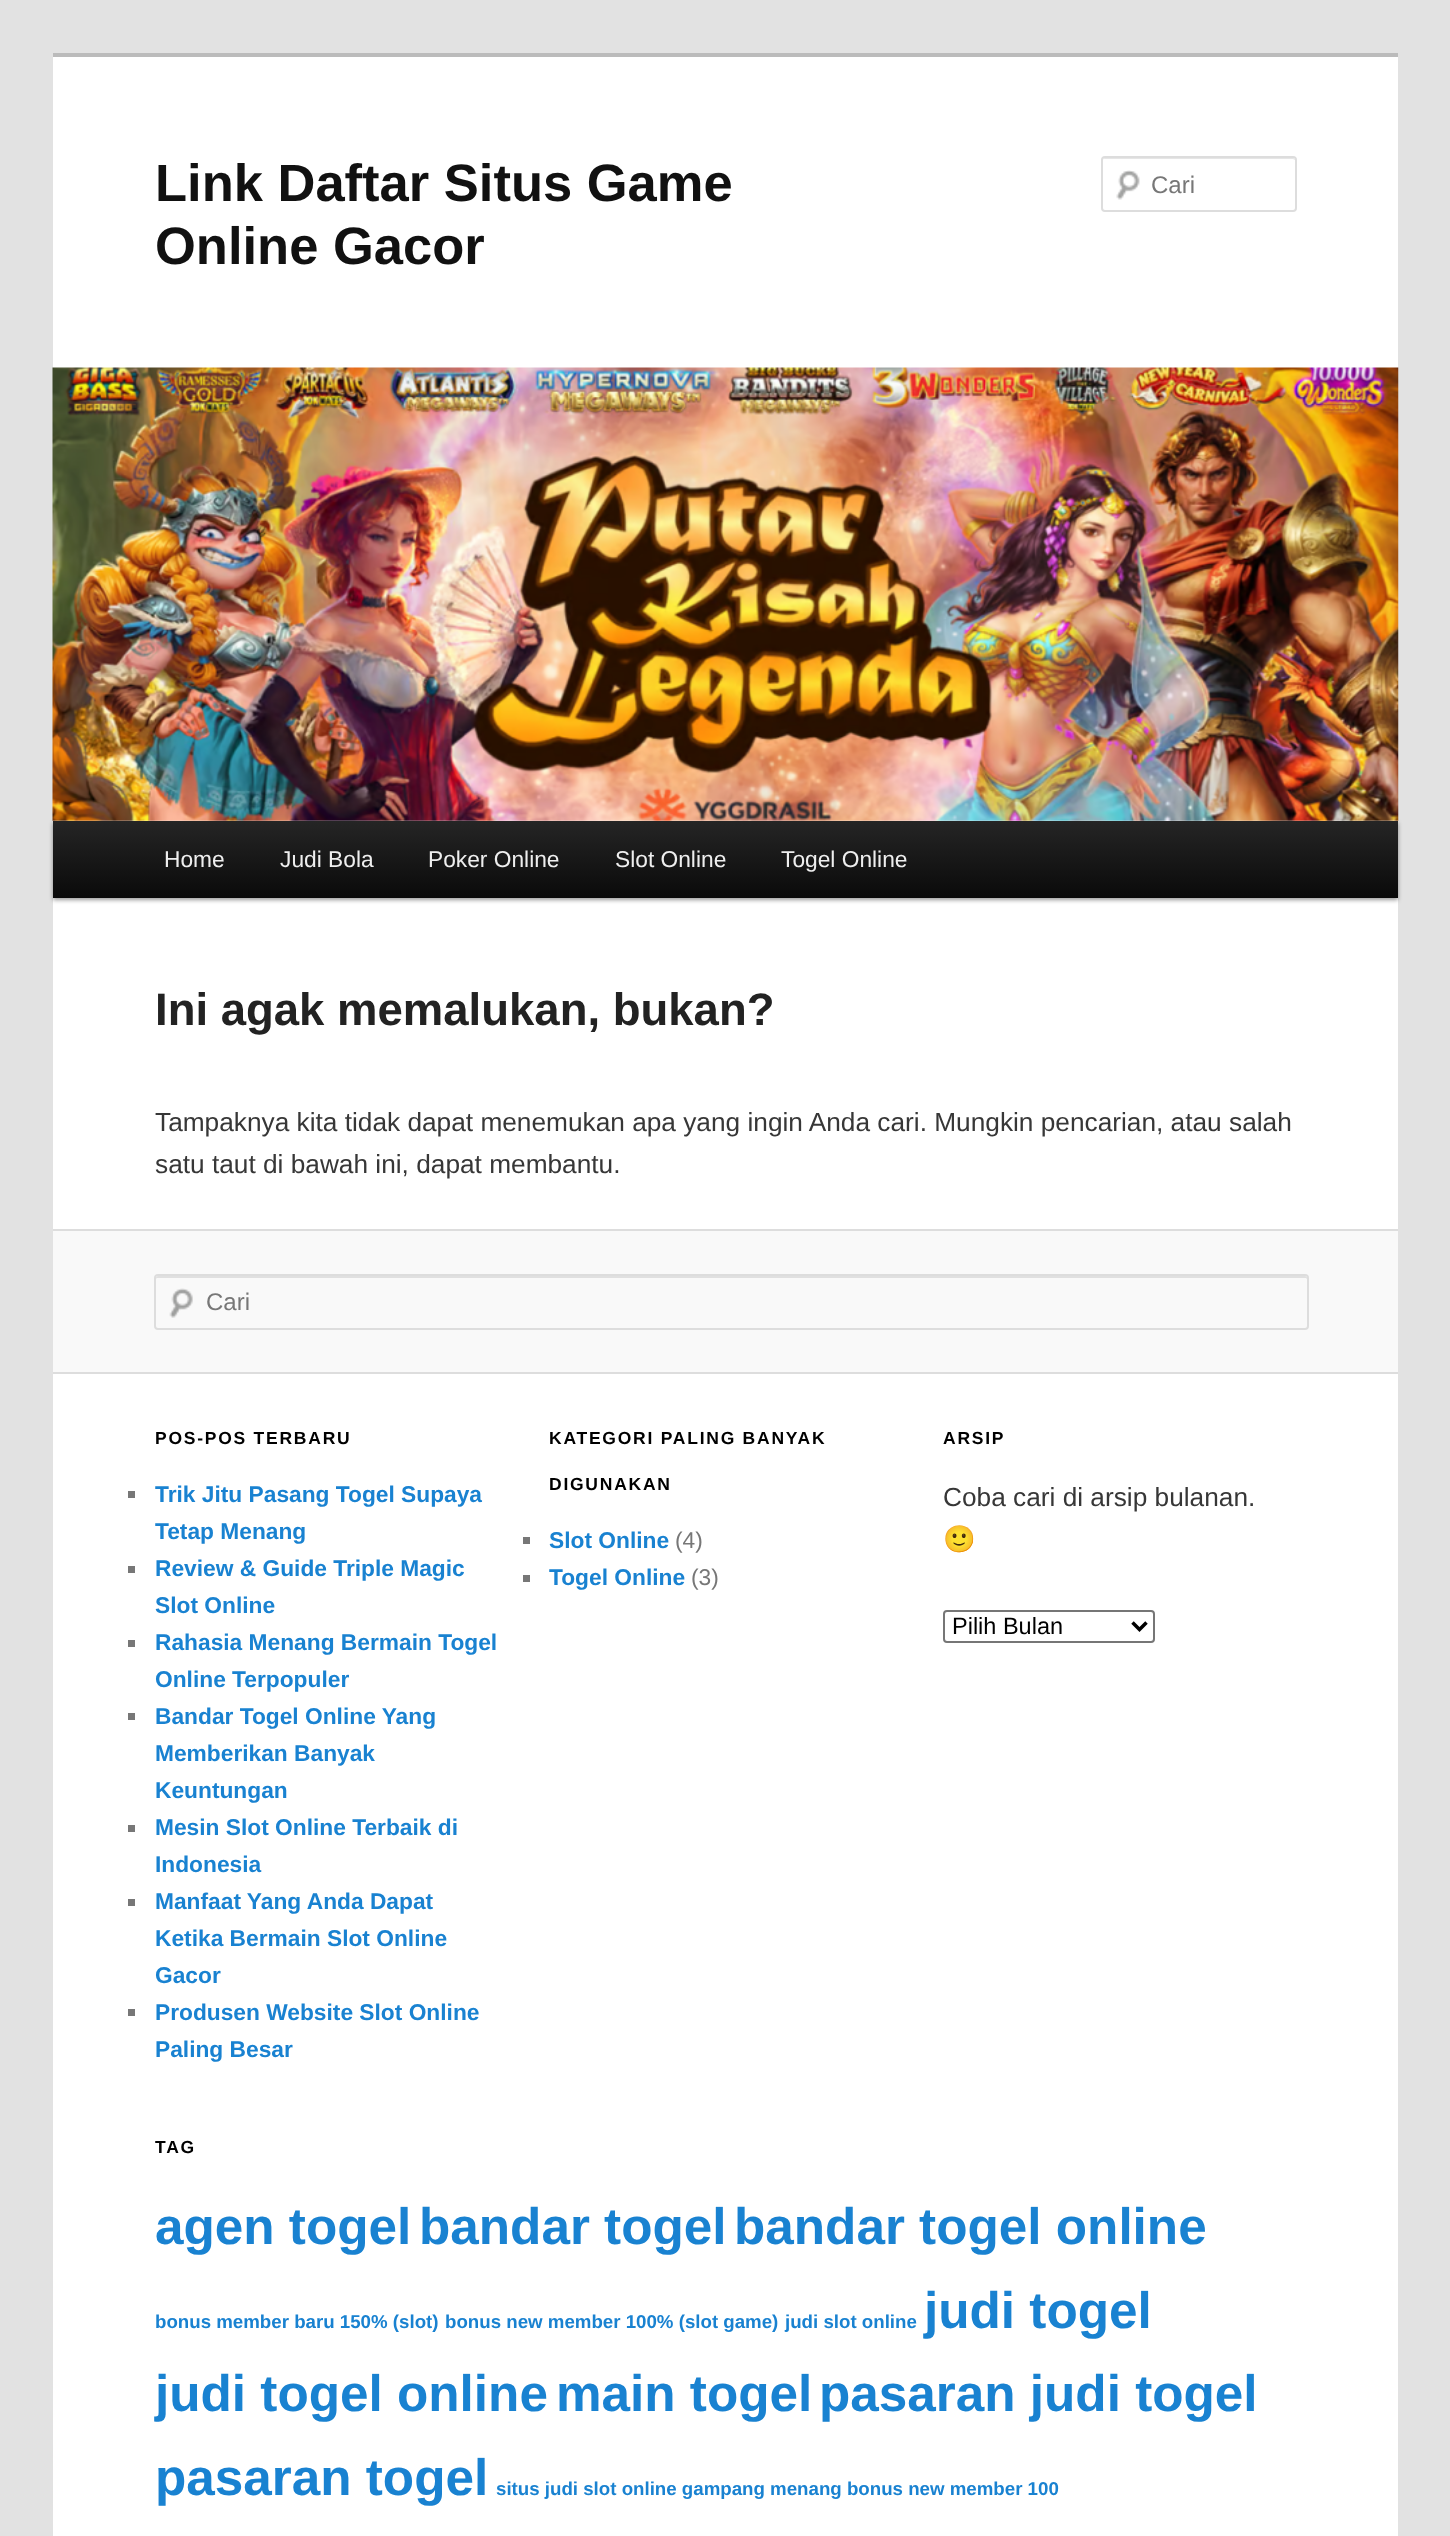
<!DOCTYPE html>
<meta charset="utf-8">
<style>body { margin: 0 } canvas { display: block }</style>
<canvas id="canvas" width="1450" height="2536"></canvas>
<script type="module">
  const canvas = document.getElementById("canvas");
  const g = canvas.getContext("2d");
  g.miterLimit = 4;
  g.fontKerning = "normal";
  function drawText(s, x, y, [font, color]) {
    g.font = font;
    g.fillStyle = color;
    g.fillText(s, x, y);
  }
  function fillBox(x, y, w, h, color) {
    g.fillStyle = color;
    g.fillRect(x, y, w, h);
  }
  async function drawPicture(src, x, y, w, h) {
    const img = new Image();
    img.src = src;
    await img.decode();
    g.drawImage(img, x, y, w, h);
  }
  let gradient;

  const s1 = ["bold 52.5px Liberation Sans", "#111111"];
  const s2 = ["24px Liberation Sans", "#777777"];
  const s3 = ["22.75px Liberation Sans", "#EEEEEE"];
  const s4 = ["bold 45.5px Liberation Sans", "#222222"];
  const s5 = ["26.25px Liberation Sans", "#373737"];
  const s6 = ["bold 17.5px Liberation Sans", "#000000"];
  const s7 = ["bold 22.75px Liberation Sans", "#1982D1"];
  const s8 = ["22.75px Liberation Sans", "#777777"];
  const s9 = ["26.25px Noto Color Emoji", "#373737"];
  const s10 = ["23.5px Liberation Sans", "#000000"];
  const s11 = ["bold 51.25px Liberation Sans", "#1982D1"];
  const s12 = ["bold 18.7px Liberation Sans", "#1982D1"];

  fillBox(0, 0, 1450, 2536, "#E2E2E2");
  fillBox(53, 57, 1345, 2479, "#FFFFFF");
  fillBox(53, 53, 1345, 4, "#BBBBBB");
  drawText("Link Daftar Situs Game", 155, 201, s1);
  drawText("Online Gacor", 155, 264, s1);
  await drawPicture("pic1.png", 1116, 170, 24, 30);
  g.fillStyle = "#E6E6E6";
  g.beginPath();
  g.moveTo(1104, 159);
  g.lineTo(1293, 159);
  g.lineTo(1295, 160);
  g.lineTo(1295, 161);
  g.lineTo(1295, 160);
  g.bezierCurveTo(1295, 159, 1294, 158, 1293, 158);
  g.lineTo(1105, 158);
  g.bezierCurveTo(1104, 158, 1103, 159, 1103, 159);
  g.closePath();
  g.fill();
  g.beginPath();
  g.roundRect(1102, 157, 194, 54, 3);
  g.strokeStyle = "#DDDDDD";
  g.lineWidth = 2;
  g.stroke();
  drawText("Cari", 1151, 193, s2);
  g.fillStyle = "rgba(0, 0, 0, 0.4)";
  g.filter = "blur(2px)";
  g.beginPath();
  g.rect(53, 823, 1345, 77);
  g.fill();
  g.filter = "none";
  await drawPicture("pic2.png", 52, 367, 1347, 454);
  gradient = g.createLinearGradient(725, 821, 725, 898);
  gradient.addColorStop(0, "#252525");
  gradient.addColorStop(1, "#0A0A0A");
  g.fillStyle = gradient;
  g.fillRect(53, 821, 1345, 77);
  drawText("Home", 164, 867, s3);
  drawText("Judi Bola", 280, 867, s3);
  drawText("Poker Online", 428, 867, s3);
  drawText("Slot Online", 615, 867, s3);
  drawText("Togel Online", 781, 867, s3);
  drawText("Ini agak memalukan, bukan?", 155, 1025, s4);
  drawText("Tampaknya kita tidak dapat menemukan apa yang ingin Anda cari. Mungkin pencarian, atau salah", 155, 1131, s5);
  drawText("satu taut di bawah ini, dapat membantu.", 155, 1173, s5);
  fillBox(53, 1231, 1345, 141, "#F9F9F9");
  fillBox(53, 1229, 1345, 2, "#DDDDDD");
  fillBox(53, 1372, 1345, 2, "#DDDDDD");
  await drawPicture("pic3.png", 169, 1288, 24, 30);
  g.fillStyle = "#E0E0E0";
  g.beginPath();
  g.moveTo(158, 1278);
  g.lineTo(1306, 1278);
  g.lineTo(1307, 1279);
  g.lineTo(1307, 1278);
  g.bezierCurveTo(1307, 1277, 1306, 1276, 1305, 1276);
  g.lineTo(158, 1276);
  g.bezierCurveTo(157, 1276, 156, 1277, 156, 1278);
  g.lineTo(156, 1279);
  g.bezierCurveTo(156, 1278, 157, 1278, 158, 1278);
  g.closePath();
  g.fill();
  g.beginPath();
  g.roundRect(155, 1275, 1153, 54, 3);
  g.stroke();
  drawText("Cari", 206, 1310, s2);
  g.letterSpacing = "1.75px";
  drawText("POS-POS TERBARU", 155, 1444, s6);
  fillBox(128, 1491, 7, 7, "#777777");
  g.letterSpacing = "0px";
  drawText("Trik Jitu Pasang Togel Supaya", 155, 1502, s7);
  drawText("Tetap Menang", 155, 1539, s7);
  fillBox(128, 1566, 7, 7, "#777777");
  drawText("Review & Guide Triple Magic", 155, 1576, s7);
  drawText("Slot Online", 155, 1613, s7);
  fillBox(128, 1640, 7, 7, "#777777");
  drawText("Rahasia Menang Bermain Togel", 155, 1650, s7);
  drawText("Online Terpopuler", 155, 1687, s7);
  fillBox(128, 1713, 7, 7, "#777777");
  drawText("Bandar Togel Online Yang", 155, 1724, s7);
  drawText("Memberikan Banyak", 155, 1761, s7);
  drawText("Keuntungan", 155, 1798, s7);
  fillBox(128, 1825, 7, 7, "#777777");
  drawText("Mesin Slot Online Terbaik di", 155, 1835, s7);
  drawText("Indonesia", 155, 1872, s7);
  fillBox(128, 1899, 7, 7, "#777777");
  drawText("Manfaat Yang Anda Dapat", 155, 1909, s7);
  drawText("Ketika Bermain Slot Online", 155, 1946, s7);
  drawText("Gacor", 155, 1983, s7);
  fillBox(128, 2009, 7, 7, "#777777");
  drawText("Produsen Website Slot Online", 155, 2020, s7);
  drawText("Paling Besar", 155, 2057, s7);
  g.letterSpacing = "1.75px";
  drawText("KATEGORI PALING BANYAK", 549, 1444, s6);
  drawText("DIGUNAKAN", 549, 1490, s6);
  fillBox(523, 1537, 7, 7, "#777777");
  g.letterSpacing = "0px";
  drawText("Slot Online", 549, 1548, s7);
  drawText("(4)", 675, 1548, s8);
  fillBox(523, 1575, 7, 7, "#777777");
  drawText("Togel Online", 549, 1585, s7);
  drawText("(3)", 691, 1585, s8);
  g.letterSpacing = "1.75px";
  drawText("ARSIP", 943, 1444, s6);
  g.letterSpacing = "0px";
  drawText("Coba cari di arsip bulanan.", 943, 1506, s5);
  drawText("🙂", 943, 1548, s9);
  g.beginPath();
  g.roundRect(944, 1611, 210, 31, 3);
  g.strokeStyle = "#767676";
  g.stroke();
  g.beginPath();
  g.moveTo(1132.5, 1622.5);
  g.lineTo(1139.5, 1629.5);
  g.lineTo(1146.5, 1622.5);
  g.strokeStyle = "#000000";
  g.lineWidth = 3.5;
  g.stroke();
  drawText("Pilih Bulan", 952, 1634, s10);
  g.letterSpacing = "1.75px";
  drawText("TAG", 155, 2153, s6);
  g.letterSpacing = "0px";
  drawText("agen togel", 155, 2244, s11);
  drawText("bandar togel", 419, 2244, s11);
  drawText("bandar togel online", 734, 2244, s11);
  drawText("bonus member baru 150% (slot)", 155, 2328, s12);
  drawText("bonus new member 100% (slot game)", 445, 2328, s12);
  drawText("judi slot online", 785, 2328, s12);
  drawText("judi togel", 924, 2328, s11);
  drawText("judi togel online", 155, 2411, s11);
  drawText("main togel", 556, 2411, s11);
  drawText("pasaran judi togel", 819, 2411, s11);
  drawText("pasaran togel", 155, 2495, s11);
  drawText("situs judi slot online gampang menang bonus new member 100", 496, 2495, s12);
</script>
